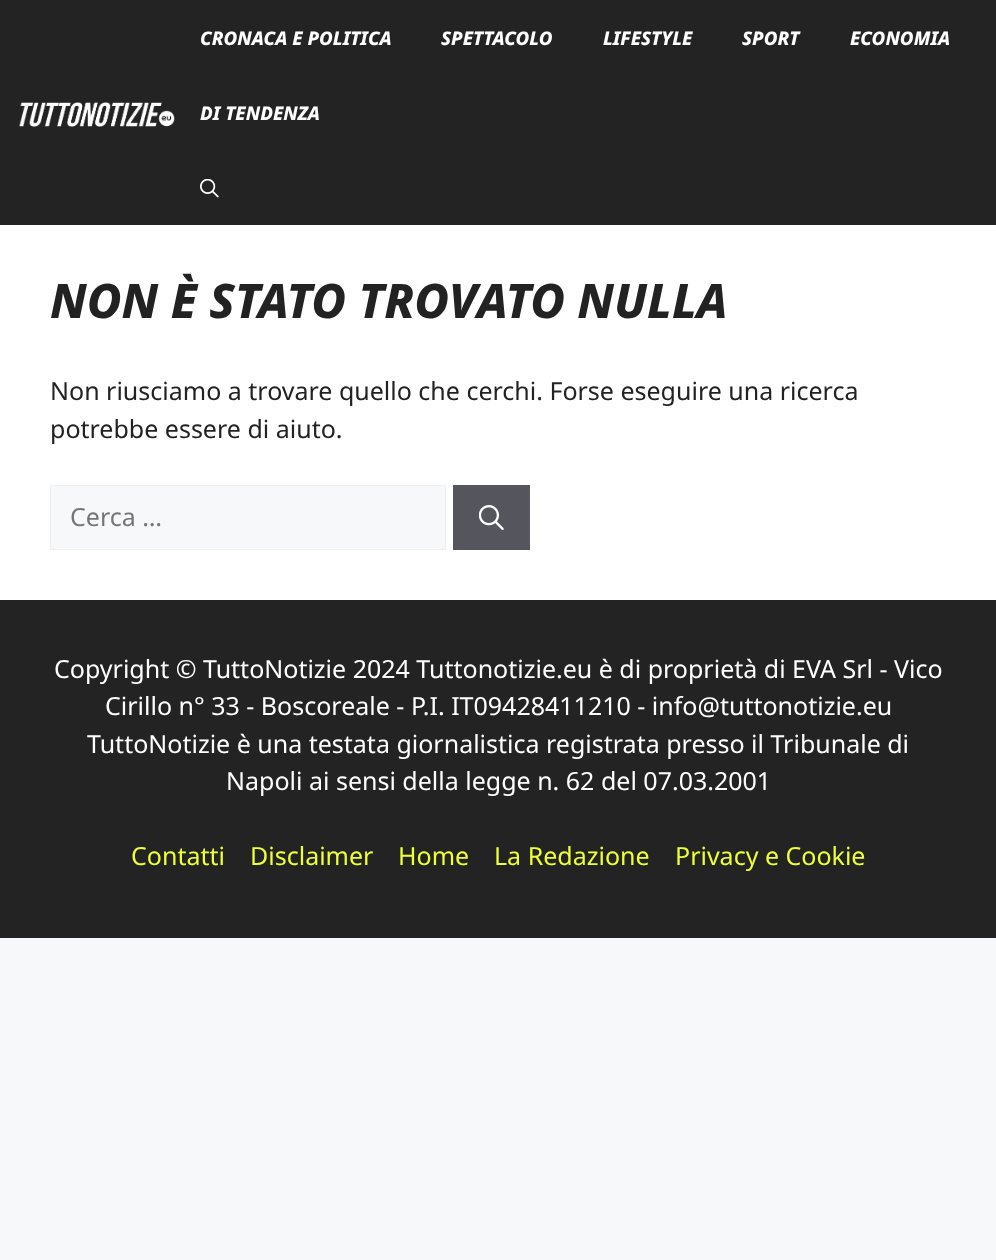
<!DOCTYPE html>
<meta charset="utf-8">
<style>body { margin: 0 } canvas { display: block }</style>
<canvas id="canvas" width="996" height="1260"></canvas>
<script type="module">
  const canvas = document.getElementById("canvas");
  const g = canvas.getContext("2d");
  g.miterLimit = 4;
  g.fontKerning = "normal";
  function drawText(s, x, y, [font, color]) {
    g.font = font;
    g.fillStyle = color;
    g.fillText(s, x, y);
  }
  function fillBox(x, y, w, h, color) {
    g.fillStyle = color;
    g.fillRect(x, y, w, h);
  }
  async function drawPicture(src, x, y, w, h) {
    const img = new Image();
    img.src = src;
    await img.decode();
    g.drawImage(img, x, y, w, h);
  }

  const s1 = ["italic 800 18.75px Noto Sans", "#FFFFFF"];
  const s2 = ["italic 800 47.5px Noto Sans", "#222222"];
  const s3 = ["25px Noto Sans", "#222222"];
  const s4 = ["25px Noto Sans", "#757575"];
  const s5 = ["25px Noto Sans", "#FFFFFF"];
  const s6 = ["25px Noto Sans", "#EDFF35"];

  fillBox(0, 0, 996, 1260, "#F7F8F9");
  fillBox(0, 0, 996, 225, "#232323");
  await drawPicture("pic1.png", 19, 102, 156, 25);
  drawText("CRONACA E POLITICA", 200, 45, s1);
  drawText("SPETTACOLO", 441, 45, s1);
  drawText("LIFESTYLE", 603, 45, s1);
  drawText("SPORT", 742, 45, s1);
  drawText("ECONOMIA", 850, 45, s1);
  drawText("DI TENDENZA", 200, 120, s1);
  await drawPicture("pic2.png", 200, 179, 19, 19);
  fillBox(0, 225, 996, 375, "#FFFFFF");
  drawText("NON È STATO TROVATO NULLA", 50, 318, s2);
  drawText("Non riusciamo a trovare quello che cerchi. Forse eseguire una ricerca", 50, 400, s3);
  drawText("potrebbe essere di aiuto.", 50, 438, s3);
  g.fillStyle = "#F7F8F9";
  g.beginPath();
  g.rect(50.5, 485.5, 395, 64);
  g.fill();
  g.strokeStyle = "#F0F0F0";
  g.stroke();
  drawText("Cerca …", 70, 526, s4);
  fillBox(453, 485, 77, 65, "#55555E");
  await drawPicture("pic3.png", 479, 505, 25, 25);
  fillBox(0, 600, 996, 338, "#232323");
  drawText("Copyright © TuttoNotizie 2024 Tuttonotizie.eu è di proprietà di EVA Srl - Vico", 54, 678, s5);
  drawText("Cirillo n° 33 - Boscoreale - P.I. IT09428411210 - info@tuttonotizie.eu", 105, 715, s5);
  drawText("TuttoNotizie è una testata giornalistica registrata presso il Tribunale di", 87, 753, s5);
  drawText("Napoli ai sensi della legge n. 62 del 07.03.2001", 226, 790, s5);
  drawText("Contatti", 131, 865, s6);
  drawText("Disclaimer", 250, 865, s6);
  drawText("Home", 398, 865, s6);
  drawText("La Redazione", 494, 865, s6);
  drawText("Privacy e Cookie", 675, 865, s6);
</script>
